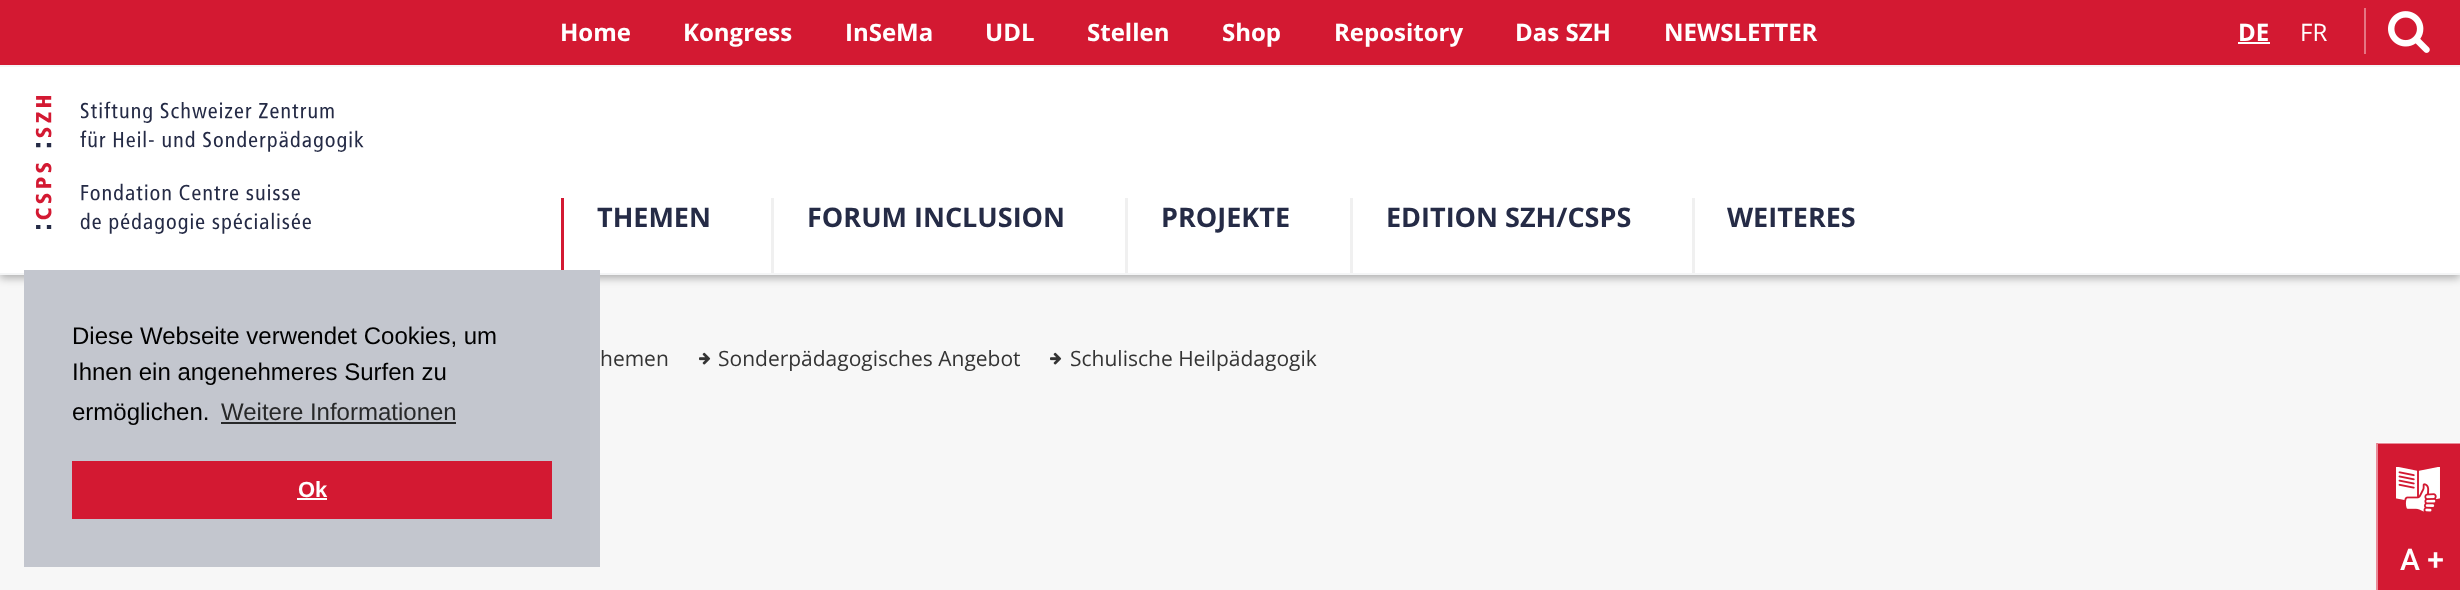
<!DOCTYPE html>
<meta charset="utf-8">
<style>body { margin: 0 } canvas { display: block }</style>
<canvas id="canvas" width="2460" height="590"></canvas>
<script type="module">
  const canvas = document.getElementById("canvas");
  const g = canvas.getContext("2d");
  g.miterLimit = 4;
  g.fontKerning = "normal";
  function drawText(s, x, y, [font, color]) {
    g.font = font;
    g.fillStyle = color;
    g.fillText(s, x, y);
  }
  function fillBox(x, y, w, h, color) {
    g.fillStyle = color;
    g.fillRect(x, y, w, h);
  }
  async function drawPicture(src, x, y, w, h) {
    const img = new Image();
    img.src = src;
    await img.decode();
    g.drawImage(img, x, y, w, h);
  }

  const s1 = ["24px Liberation Sans", "#000000"];
  const s2 = ["24px Liberation Sans", "#272829"];
  const s3 = ["bold 22px Liberation Sans", "#FFFFFF"];
  const s4 = ["bold 24px Open Sans", "#FFFFFF"];
  const s5 = ["24px Open Sans", "#FFFFFF"];
  const s6 = ["bold 27px Open Sans", "#252B46"];
  const s7 = ["21px Open Sans", "#343434"];
  const s8 = ["500 30px Roboto", "#FFFFFF"];

  fillBox(0, 0, 2460, 590, "#F7F7F7");
  g.fillStyle = "rgba(0, 0, 0, 0.3)";
  g.filter = "blur(4px)";
  g.beginPath();
  g.rect(0, 3, 2460, 275);
  g.fill();
  g.filter = "none";
  fillBox(0, 67, 2460, 206, "#FFFFFF");
  fillBox(0, 273, 2460, 2, "#F4F5F6");
  fillBox(561, 198, 3, 75, "#D31932");
  fillBox(24, 270, 576, 297, "#C3C6CE");
  drawText("Diese Webseite verwendet Cookies, um", 72, 344, s1);
  drawText("Ihnen ein angenehmeres Surfen zu", 72, 380, s1);
  drawText("ermöglichen.", 72, 420, s1);
  drawText("Weitere Informationen", 221, 420, s2);
  fillBox(221, 422, 235, 2, "#272829");
  fillBox(72, 461, 480, 58, "#D31932");
  drawText("Ok", 298, 497, s3);
  fillBox(297, 498, 30, 2, "#FFFFFF");
  fillBox(0, 0, 2460, 65, "#D31932");
  fillBox(0, 65, 2460, 2, "#F4F5F6");
  drawText("Home", 560, 41, s4);
  drawText("Kongress", 683, 41, s4);
  drawText("InSeMa", 845, 41, s4);
  drawText("UDL", 985, 41, s4);
  drawText("Stellen", 1087, 41, s4);
  drawText("Shop", 1222, 41, s4);
  drawText("Repository", 1334, 41, s4);
  drawText("Das SZH", 1515, 41, s4);
  drawText("NEWSLETTER", 1664, 41, s4);
  drawText("DE", 2238, 41, s4);
  fillBox(2238, 42, 32, 2, "#FFFFFF");
  drawText("FR", 2300, 41, s5);
  fillBox(2364, 8, 2, 46, "#E57584");
  await drawPicture("pic1.png", 2388, 11, 42, 42);
  await drawPicture("pic2.png", 35, 96, 329, 138);
  drawText("THEMEN", 597, 227, s6);
  drawText("FORUM INCLUSION", 807, 227, s6);
  fillBox(771, 198, 3, 75, "#F0F0F0");
  drawText("PROJEKTE", 1161, 227, s6);
  fillBox(1125, 198, 3, 75, "#F0F0F0");
  drawText("EDITION SZH/CSPS", 1386, 227, s6);
  fillBox(1350, 198, 3, 75, "#F0F0F0");
  drawText("WEITERES", 1727, 227, s6);
  fillBox(1692, 198, 3, 75, "#F0F0F0");
  drawText("hemen", 600, 366, s7);
  await drawPicture("pic3.png", 699, 352, 12, 13);
  drawText("Sonderpädagogisches Angebot", 718, 366, s7);
  await drawPicture("pic3.png", 1050, 352, 12, 13);
  drawText("Schulische Heilpädagogik", 1070, 366, s7);
  fillBox(2376, 443, 84, 147, "#D31932");
  g.fillStyle = "rgba(255, 255, 255, 0.5)";
  g.beginPath();
  g.moveTo(2376, 442);
  g.lineTo(2460, 442);
  g.lineTo(2460, 444);
  g.lineTo(2378, 444);
  g.closePath();
  g.fill();
  g.beginPath();
  g.moveTo(2376, 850);
  g.lineTo(2376, 442);
  g.lineTo(2378, 444);
  g.lineTo(2378, 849);
  g.closePath();
  g.fill();
  await drawPicture("pic4.png", 2396, 467, 44, 45);
  drawText("A +", 2400, 570, s8);
</script>
